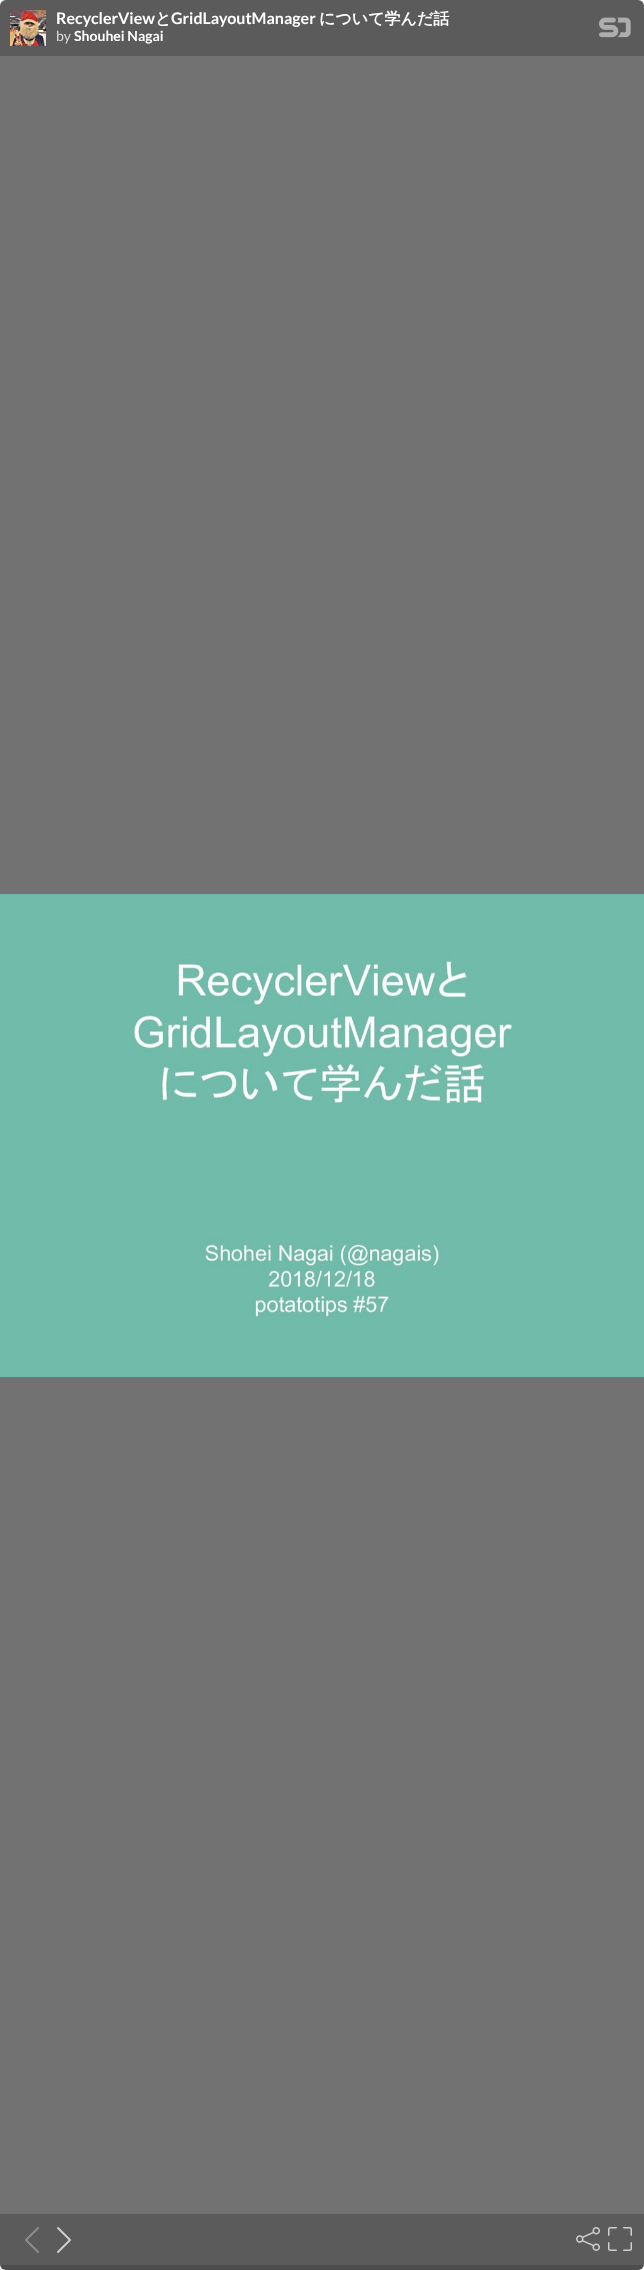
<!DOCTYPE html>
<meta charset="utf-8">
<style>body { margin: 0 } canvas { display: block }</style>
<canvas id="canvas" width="644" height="2270"></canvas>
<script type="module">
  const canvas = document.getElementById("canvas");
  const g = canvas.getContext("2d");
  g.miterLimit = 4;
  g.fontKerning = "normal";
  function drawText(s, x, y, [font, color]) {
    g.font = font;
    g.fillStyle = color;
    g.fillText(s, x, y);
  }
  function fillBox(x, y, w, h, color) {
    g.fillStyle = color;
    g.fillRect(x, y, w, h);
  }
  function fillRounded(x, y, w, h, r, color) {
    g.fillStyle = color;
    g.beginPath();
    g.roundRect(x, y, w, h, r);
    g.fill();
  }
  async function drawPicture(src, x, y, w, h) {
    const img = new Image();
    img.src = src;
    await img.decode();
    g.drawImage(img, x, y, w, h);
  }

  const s1 = ["bold 16px Lato", "#FFFFFF"];
  const s2 = ["bold 16px WenQuanYi Zen Hei", "#FFFFFF"];
  const s3 = ["14px Lato", "#DEDEDE"];
  const s4 = ["bold 14px Lato", "#FFFFFF"];

  fillBox(0, 0, 644, 2270, "#FFFFFF");
  fillRounded(0, 0, 644, 2270, 6, "#727272");
  await drawPicture("pic1.png", 0, 893, 644, 485);
  g.fillStyle = "rgba(0, 0, 0, 0.2)";
  g.beginPath();
  g.roundRect(0, 0, 644, 56, [6, 6, 0, 0]);
  g.fill();
  await drawPicture("pic2.png", 10, 10, 36, 36);
  drawText("RecyclerView", 56, 24, s1);
  drawText("と", 155, 24, s2);
  drawText("GridLayoutManager", 171, 24, s1);
  drawText("について学んだ話", 319, 24, s2);
  await drawPicture("pic3.png", 599, 17, 32, 21);
  drawText("by", 56, 41, s3);
  drawText("Shouhei Nagai", 74, 41, s4);
  g.fillStyle = "rgba(0, 0, 0, 0.2)";
  g.beginPath();
  g.roundRect(0, 2214, 644, 56, [0, 0, 6, 6]);
  g.fill();
  await drawPicture("pic4.png", 25, 2227, 14, 26);
  await drawPicture("pic5.png", 57, 2227, 14, 26);
  await drawPicture("pic6.png", 576, 2227, 24, 24);
  await drawPicture("pic7.png", 608, 2227, 24, 24);
  g.save();
  g.beginPath();
  g.roundRect(0, 0, 644, 2270, 6);
  g.clip();
  fillBox(0, 2265, 644, 5, "rgba(0, 0, 0, 0.15)");
  g.restore();
</script>
